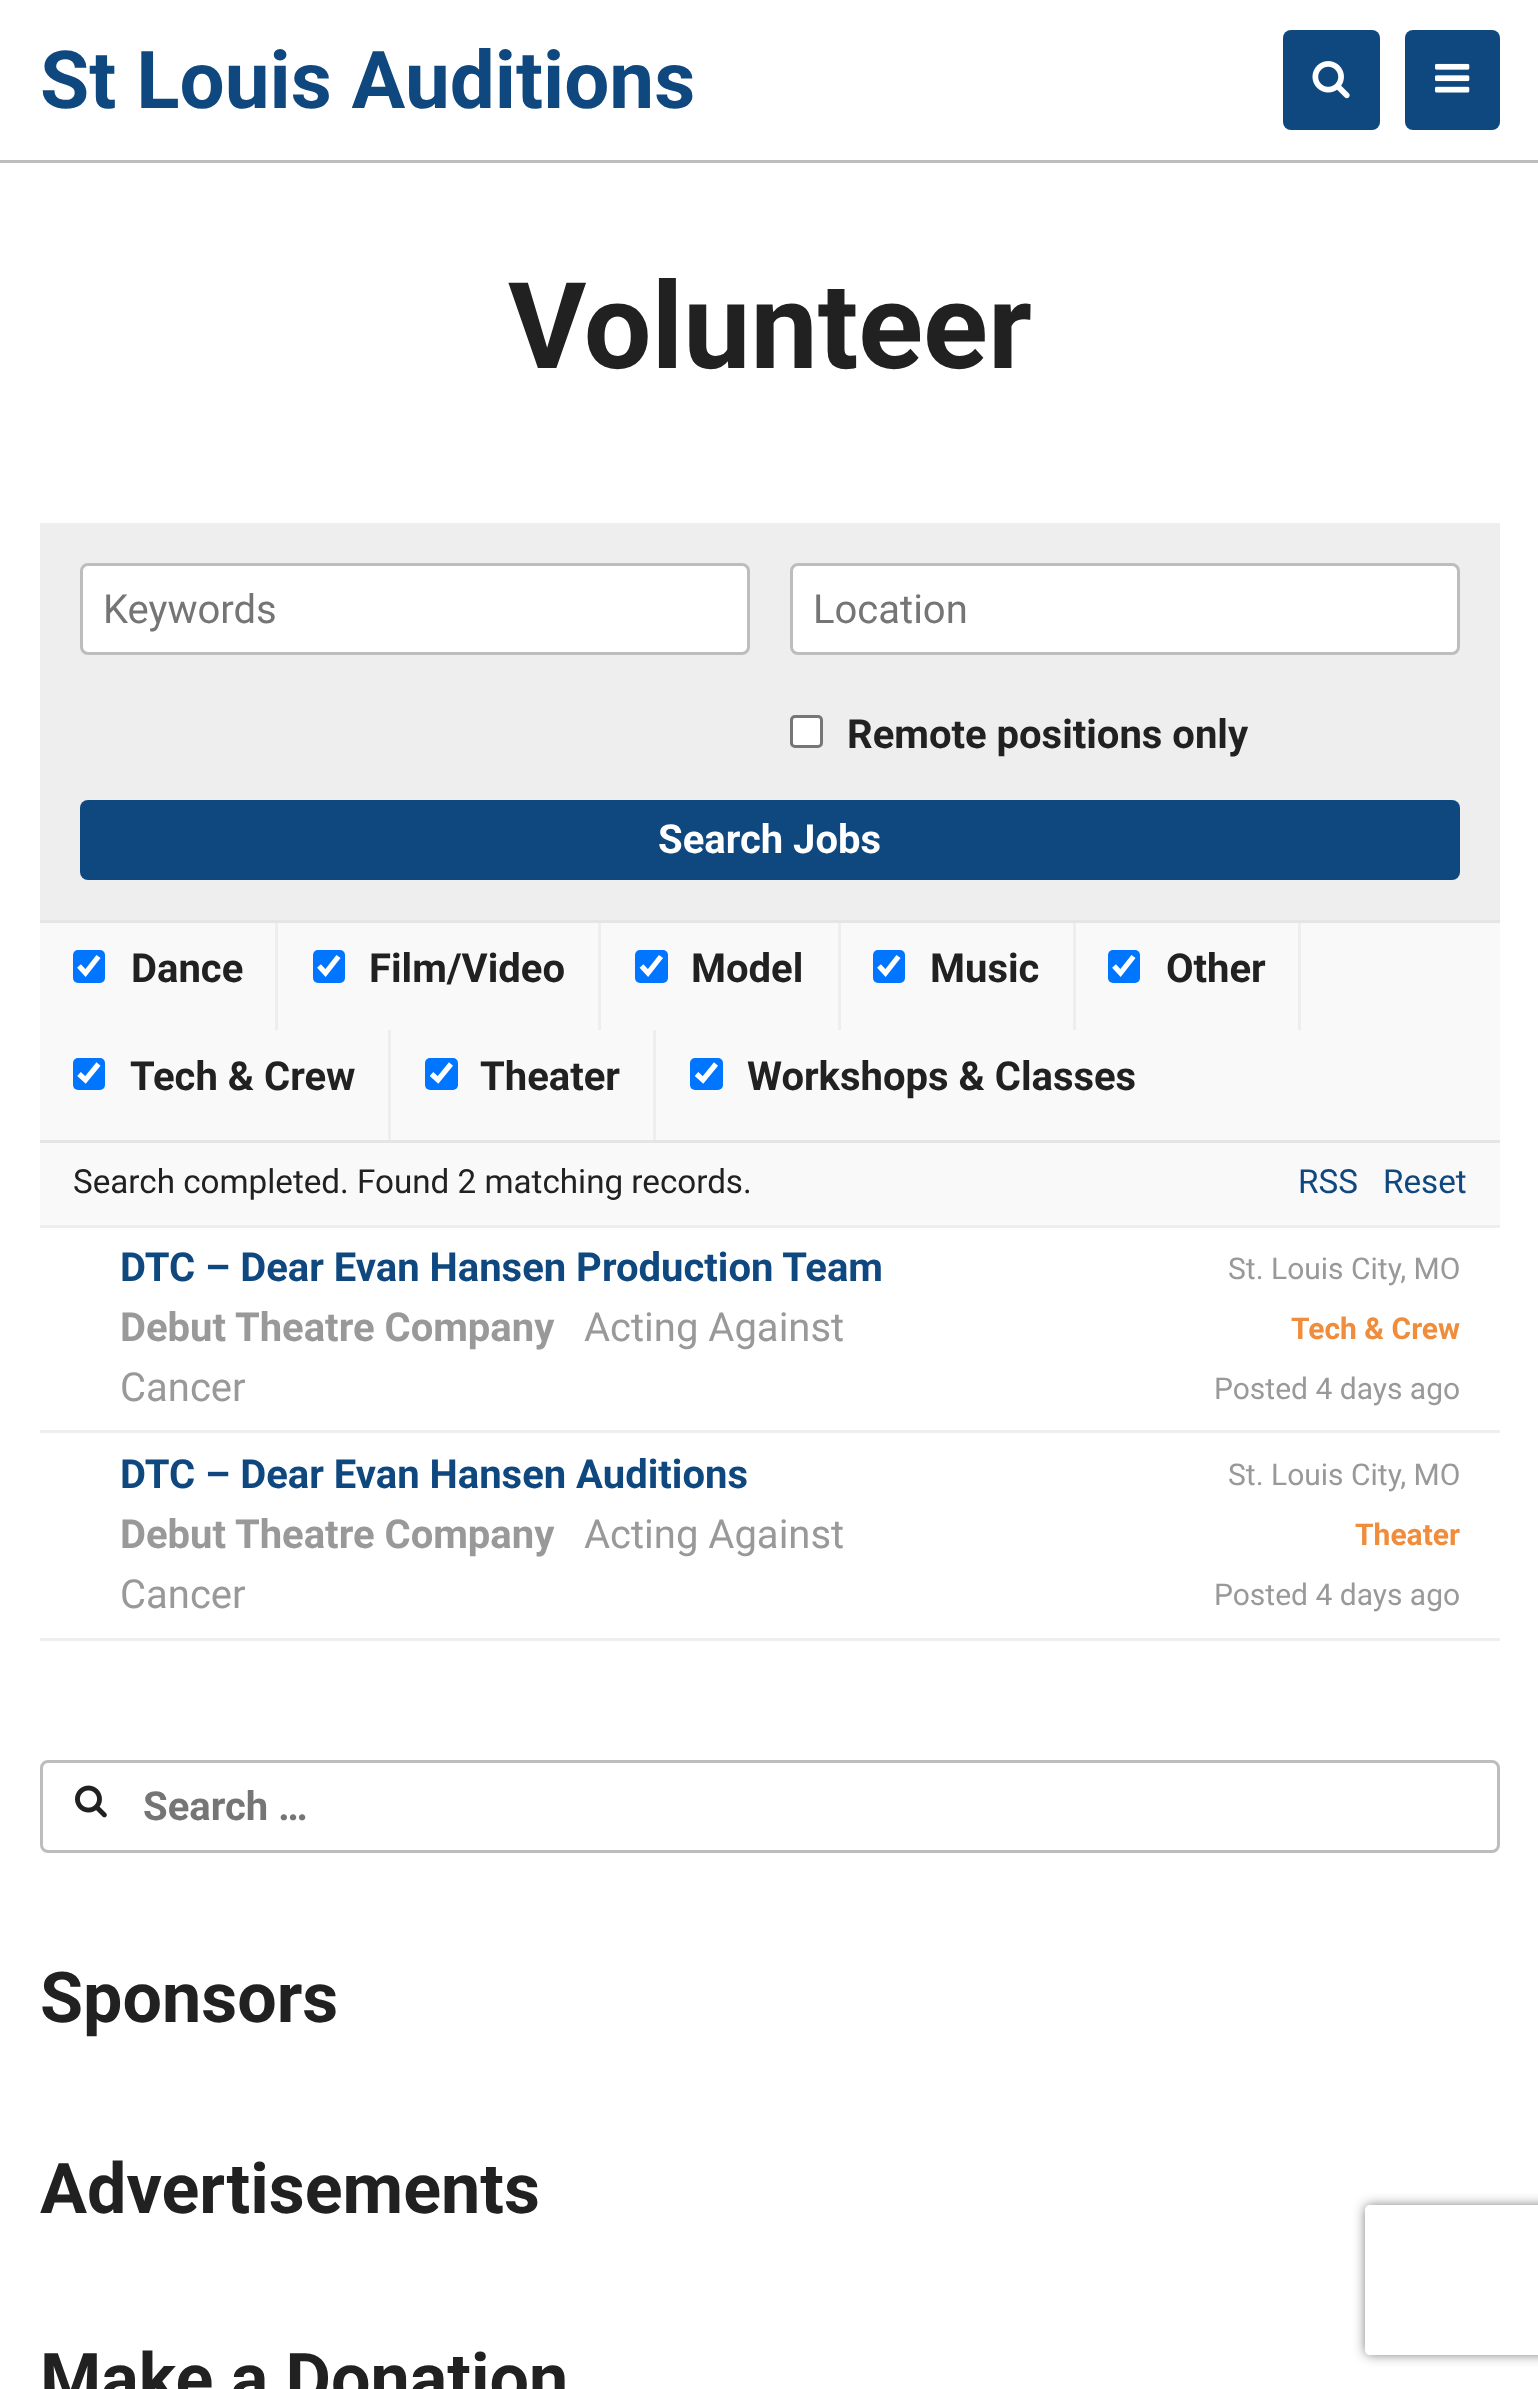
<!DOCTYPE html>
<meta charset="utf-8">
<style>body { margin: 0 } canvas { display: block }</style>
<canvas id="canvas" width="1538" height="2389"></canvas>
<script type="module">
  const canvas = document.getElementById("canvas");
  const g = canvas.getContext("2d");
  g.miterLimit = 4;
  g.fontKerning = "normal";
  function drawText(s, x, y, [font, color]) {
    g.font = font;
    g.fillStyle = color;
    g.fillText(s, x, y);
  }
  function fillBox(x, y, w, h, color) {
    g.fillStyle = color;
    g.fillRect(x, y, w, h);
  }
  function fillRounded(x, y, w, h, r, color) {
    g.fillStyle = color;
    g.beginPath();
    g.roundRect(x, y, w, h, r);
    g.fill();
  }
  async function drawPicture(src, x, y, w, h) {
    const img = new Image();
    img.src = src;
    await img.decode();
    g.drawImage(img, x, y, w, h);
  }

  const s1 = ["bold 80px Roboto", "#0F477F"];
  const s2 = ["bold 120px Roboto", "#212121"];
  const s3 = ["40px Roboto", "#757575"];
  const s4 = ["bold 40px Roboto", "#212121"];
  const s5 = ["bold 40px Roboto", "#FFFFFF"];
  const s6 = ["33.2px Roboto", "#212121"];
  const s7 = ["33.2px Roboto", "#0F477F"];
  const s8 = ["bold 40px Roboto", "#0F477F"];
  const s9 = ["bold 40px Roboto", "#999999"];
  const s10 = ["40px Roboto", "#999999"];
  const s11 = ["30px Roboto", "#999999"];
  const s12 = ["bold 30px Roboto", "#F08D3C"];
  const s13 = ["bold 40px Roboto", "#757575"];
  const s14 = ["bold 70px Roboto", "#212121"];

  fillBox(0, 0, 1538, 2389, "#FFFFFF");
  fillBox(0, 160, 1538, 3, "#BDBDBD");
  drawText("St Louis Auditions", 40, 108, s1);
  fillRounded(1283, 30, 97, 100, 8, "#0F477F");
  await drawPicture("pic1.png", 1312, 61, 38, 38);
  fillRounded(1405, 30, 95, 100, 8, "#0F477F");
  await drawPicture("pic2.png", 1435, 63, 35, 30);
  drawText("Volunteer", 508, 368, s2);
  fillBox(40, 523, 1460, 397, "#EEEEEE");
  g.fillStyle = "#FFFFFF";
  g.beginPath();
  g.roundRect(81.5, 564.5, 667, 89, 6.5);
  g.fill();
  g.strokeStyle = "#BDBDBD";
  g.lineWidth = 3;
  g.stroke();
  drawText("Keywords", 103, 623, s3);
  g.fillStyle = "#FFFFFF";
  g.beginPath();
  g.roundRect(791.5, 564.5, 667, 89, 6.5);
  g.fill();
  g.stroke();
  drawText("Location", 813, 623, s3);
  g.fillStyle = "#FFFFFF";
  g.beginPath();
  g.roundRect(791.5, 716.5, 30, 30, 3.5);
  g.fill();
  g.strokeStyle = "#767676";
  g.stroke();
  drawText("Remote positions only", 847, 748, s4);
  fillRounded(80, 800, 1380, 80, 8, "#0F477F");
  drawText("Search Jobs", 658, 853, s5);
  fillBox(40, 923, 1460, 217, "#F9F9F9");
  fillBox(40, 920, 1460, 3, "#E5E5E5");
  fillBox(275, 923, 3, 107, "#EEEEEE");
  fillRounded(73, 950, 32, 33, 5, "#0075FF");
  g.beginPath();
  g.moveTo(79, 966);
  g.lineTo(85.5, 973);
  g.lineTo(98.5, 956.5);
  g.strokeStyle = "#FFFFFF";
  g.lineWidth = 5.2;
  g.stroke();
  drawText("Dance", 131, 982, s4);
  fillBox(598, 923, 3, 107, "#EEEEEE");
  fillRounded(313, 950, 32, 33, 5, "#0075FF");
  g.beginPath();
  g.moveTo(319, 966);
  g.lineTo(325.5, 973);
  g.lineTo(338.5, 956.5);
  g.stroke();
  drawText("Film/Video", 369, 982, s4);
  fillBox(838, 923, 3, 107, "#EEEEEE");
  fillRounded(635, 950, 33, 33, 5, "#0075FF");
  g.beginPath();
  g.moveTo(641.5, 966);
  g.lineTo(648, 973);
  g.lineTo(661, 956.5);
  g.stroke();
  drawText("Model", 691, 982, s4);
  fillBox(1073, 923, 3, 107, "#EEEEEE");
  fillRounded(873, 950, 32, 33, 5, "#0075FF");
  g.beginPath();
  g.moveTo(879, 966);
  g.lineTo(885.5, 973);
  g.lineTo(898.5, 956.5);
  g.stroke();
  drawText("Music", 930, 982, s4);
  fillBox(1298, 923, 3, 107, "#EEEEEE");
  fillRounded(1108, 950, 32, 33, 5, "#0075FF");
  g.beginPath();
  g.moveTo(1114, 966);
  g.lineTo(1120.5, 973);
  g.lineTo(1133.5, 956.5);
  g.stroke();
  drawText("Other", 1166, 982, s4);
  fillBox(388, 1030, 3, 110, "#EEEEEE");
  fillRounded(73, 1058, 32, 32, 5, "#0075FF");
  g.beginPath();
  g.moveTo(79, 1074);
  g.lineTo(85.5, 1080);
  g.lineTo(98.5, 1064);
  g.stroke();
  drawText("Tech & Crew", 130, 1090, s4);
  fillBox(653, 1030, 3, 110, "#EEEEEE");
  fillRounded(425, 1058, 33, 32, 5, "#0075FF");
  g.beginPath();
  g.moveTo(431.5, 1074);
  g.lineTo(438, 1080);
  g.lineTo(451, 1064);
  g.stroke();
  drawText("Theater", 480, 1090, s4);
  fillRounded(690, 1058, 33, 32, 5, "#0075FF");
  g.beginPath();
  g.moveTo(696.5, 1074);
  g.lineTo(703, 1080);
  g.lineTo(716, 1064);
  g.stroke();
  drawText("Workshops & Classes", 747, 1090, s4);
  fillBox(40, 1143, 1460, 82, "#F9F9F9");
  fillBox(40, 1140, 1460, 3, "#E5E5E5");
  drawText("Search completed. Found 2 matching records.", 73, 1193, s6);
  drawText("RSS", 1298, 1193, s7);
  drawText("Reset", 1383, 1193, s7);
  fillBox(40, 1225, 1460, 3, "#EEEEEE");
  fillBox(40, 1430, 1460, 3, "#EEEEEE");
  drawText("DTC – Dear Evan Hansen Production Team", 120, 1281, s8);
  drawText("Debut Theatre Company", 120, 1341, s9);
  drawText("Acting Against", 584, 1341, s10);
  drawText("Cancer", 120, 1401, s10);
  drawText("St. Louis City, MO", 1228, 1279, s11);
  drawText("Tech & Crew", 1291, 1339, s12);
  drawText("Posted 4 days ago", 1214, 1399, s11);
  fillBox(40, 1638, 1460, 3, "#EEEEEE");
  drawText("DTC – Dear Evan Hansen Auditions", 120, 1488, s8);
  drawText("Debut Theatre Company", 120, 1548, s9);
  drawText("Acting Against", 584, 1548, s10);
  drawText("Cancer", 120, 1608, s10);
  drawText("St. Louis City, MO", 1228, 1485, s11);
  drawText("Theater", 1355, 1545, s12);
  drawText("Posted 4 days ago", 1214, 1605, s11);
  g.beginPath();
  g.roundRect(41.5, 1761.5, 1457, 90, 6.5);
  g.strokeStyle = "#BDBDBD";
  g.lineWidth = 3;
  g.stroke();
  await drawPicture("pic3.png", 75, 1785, 32, 33);
  drawText("Search …", 143, 1820, s13);
  drawText("Sponsors", 40, 2022, s14);
  drawText("Advertisements", 40, 2213, s14);
  drawText("Make a Donation", 40, 2403, s14);
  g.save();
  g.beginPath();
  g.moveTo(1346, 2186);
  g.lineTo(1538, 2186);
  g.lineTo(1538, 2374);
  g.lineTo(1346, 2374);
  g.closePath();
  g.moveTo(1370, 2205);
  g.lineTo(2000, 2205);
  g.bezierCurveTo(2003, 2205, 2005, 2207, 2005, 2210);
  g.lineTo(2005, 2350);
  g.bezierCurveTo(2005, 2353, 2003, 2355, 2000, 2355);
  g.lineTo(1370, 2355);
  g.bezierCurveTo(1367, 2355, 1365, 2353, 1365, 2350);
  g.lineTo(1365, 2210);
  g.bezierCurveTo(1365, 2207, 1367, 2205, 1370, 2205);
  g.closePath();
  g.clip("evenodd");
  g.fillStyle = "#808080";
  g.filter = "blur(6px)";
  g.beginPath();
  g.roundRect(1365, 2205, 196, 150, 5);
  g.fill();
  g.filter = "none";
  g.restore();
</script>
